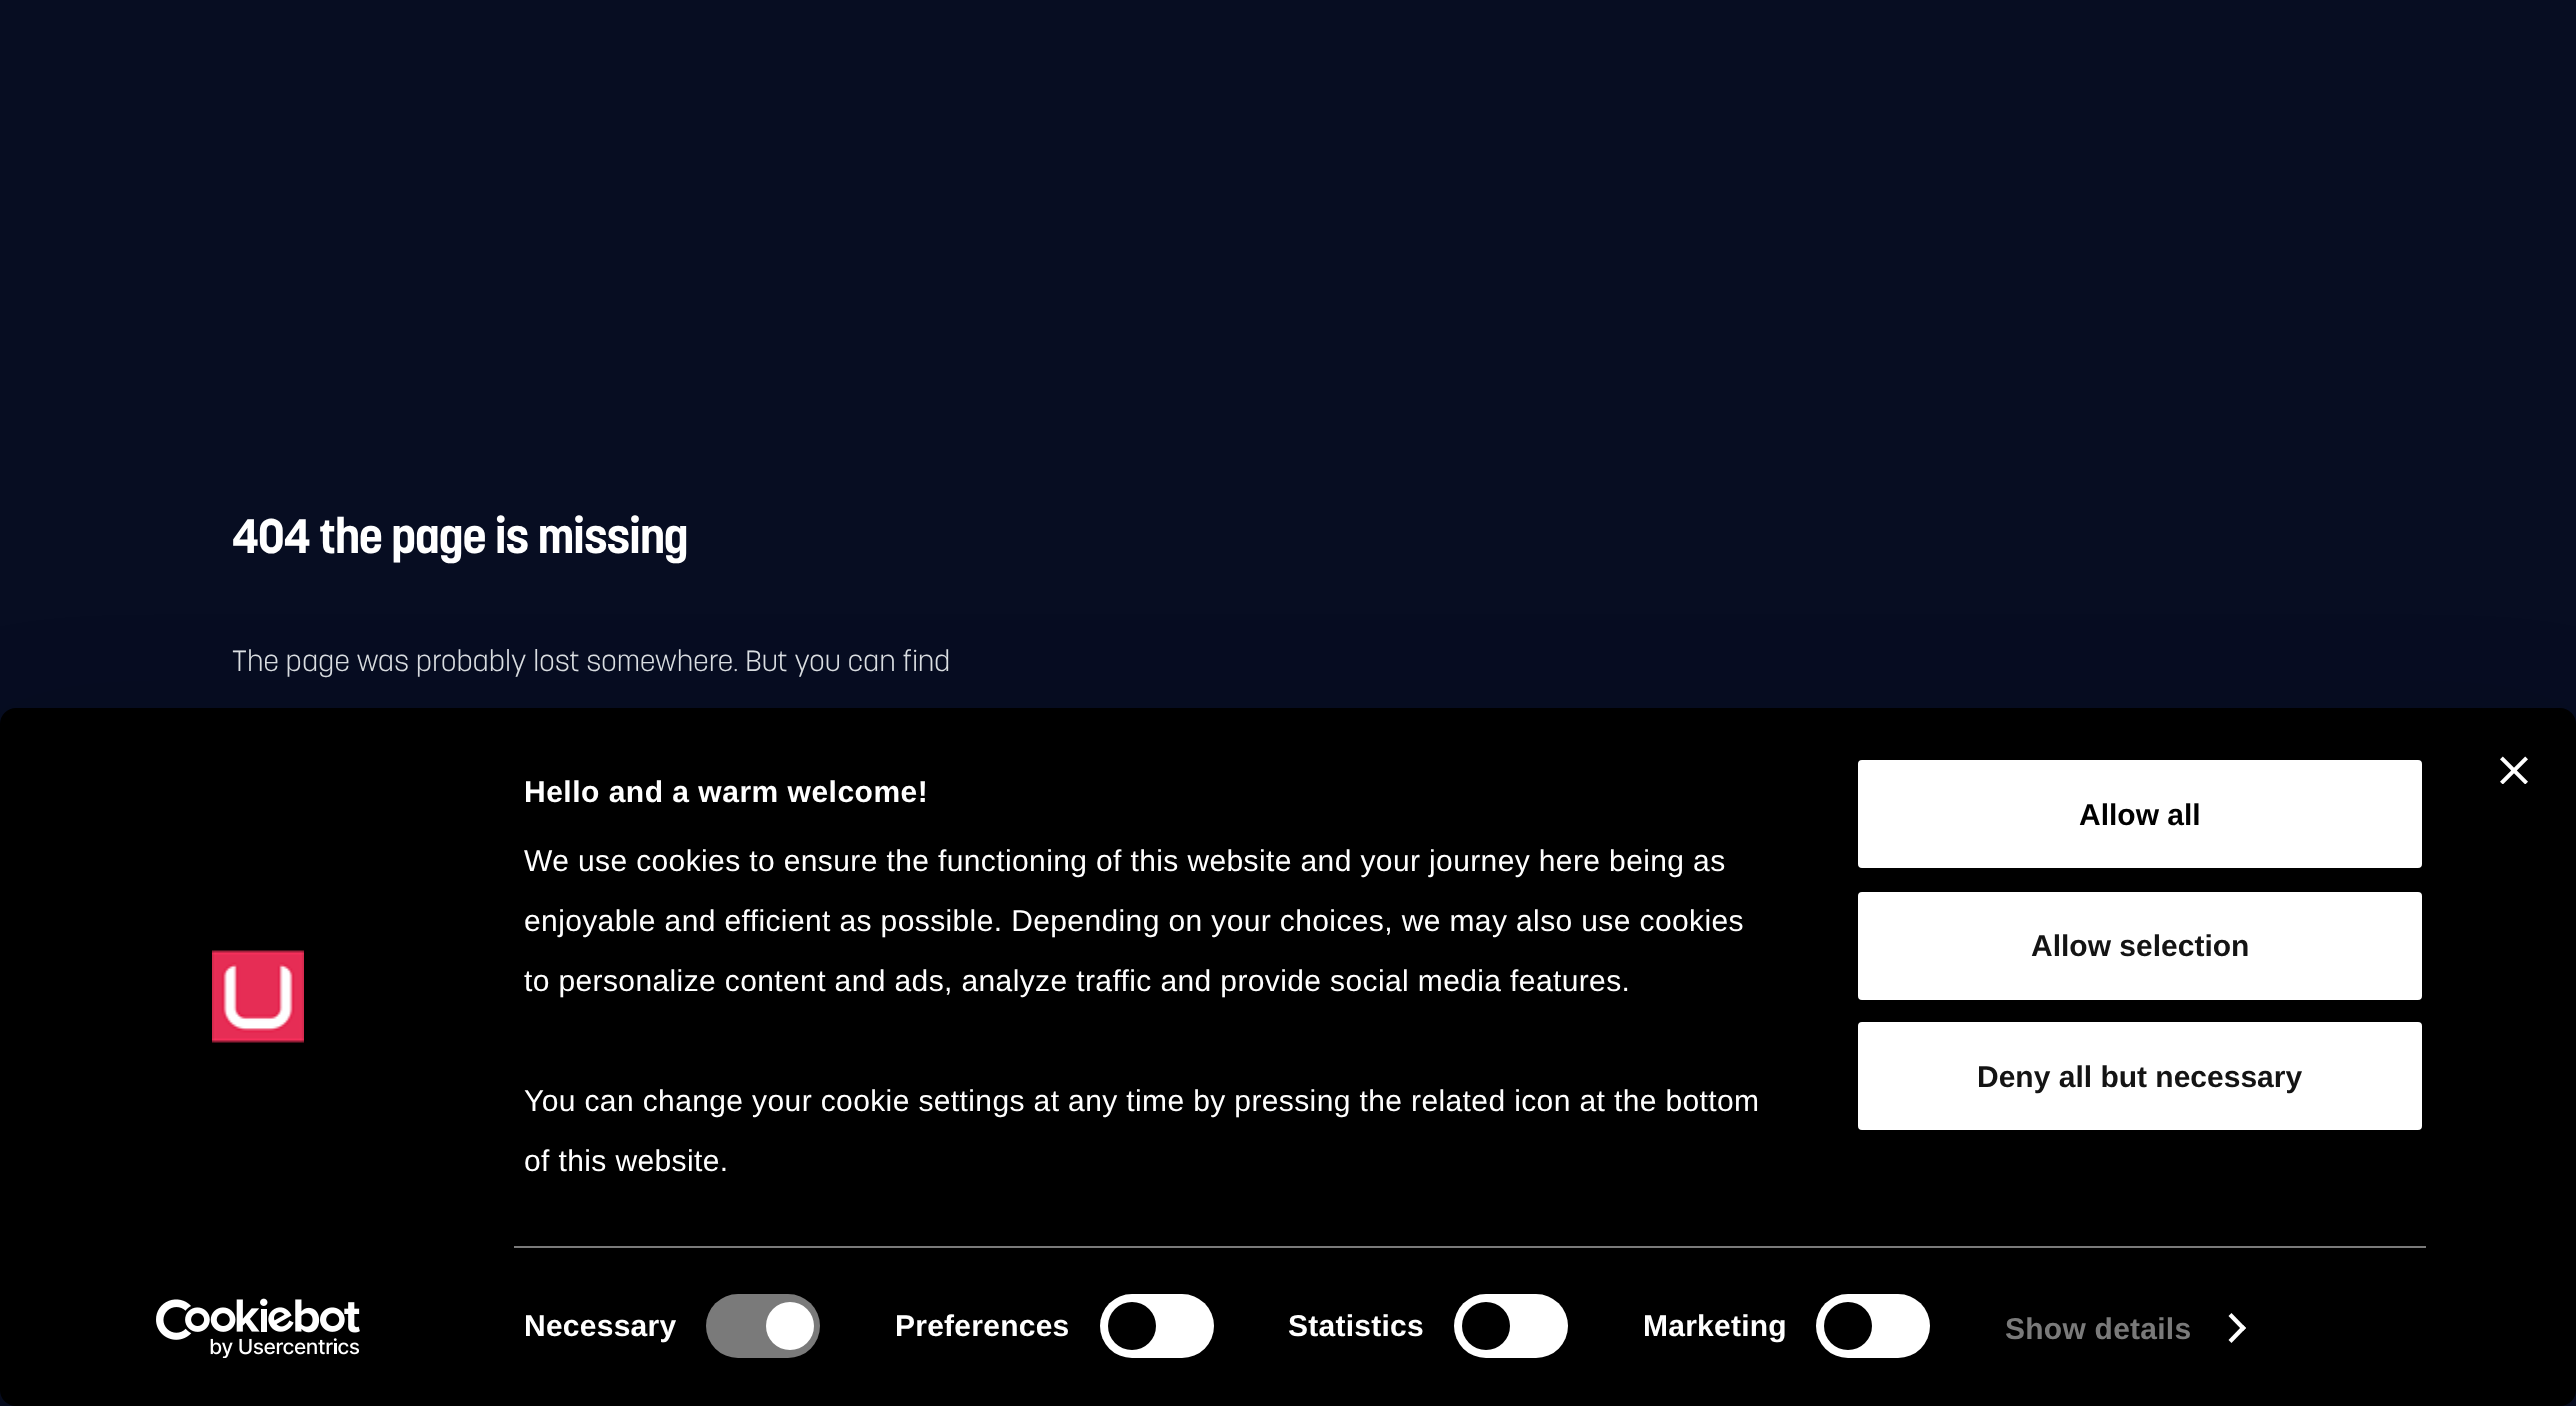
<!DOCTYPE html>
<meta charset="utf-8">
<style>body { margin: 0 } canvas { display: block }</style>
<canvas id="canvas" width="2576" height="1406"></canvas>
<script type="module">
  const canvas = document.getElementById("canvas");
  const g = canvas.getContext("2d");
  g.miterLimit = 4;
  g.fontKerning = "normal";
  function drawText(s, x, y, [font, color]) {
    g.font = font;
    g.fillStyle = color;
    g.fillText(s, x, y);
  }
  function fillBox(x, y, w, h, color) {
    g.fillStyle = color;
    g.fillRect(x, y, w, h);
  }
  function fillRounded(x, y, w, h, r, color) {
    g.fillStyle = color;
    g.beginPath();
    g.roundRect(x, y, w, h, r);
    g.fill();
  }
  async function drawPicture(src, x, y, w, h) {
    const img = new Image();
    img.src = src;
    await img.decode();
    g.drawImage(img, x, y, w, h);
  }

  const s1 = ["bold 48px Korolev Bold", "#FFFFFF"];
  const s2 = ["300 29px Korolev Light", "#DEE2E6"];
  const s3 = ["bold 30px Liberation Sans", "#FFFFFF"];
  const s4 = ["30px Liberation Sans", "#FFFFFF"];
  const s5 = ["bold 30px Liberation Sans", "#7A7A7A"];
  const s6 = ["bold 30px Liberation Sans", "#000000"];
  const s7 = ["bold 30px Liberation Sans", "#141414"];

  fillBox(0, 0, 2576, 1406, "#070D22");
  g.letterSpacing = "-1.2px";
  drawText("404 the page is missing", 232, 553, s1);
  g.letterSpacing = "0.35px";
  drawText("The page was probably lost somewhere. But you can find", 232, 671, s2);
  g.fillStyle = "rgba(0, 0, 0, 0.3)";
  g.filter = "blur(70px)";
  g.beginPath();
  g.roundRect(0, 768, 2576, 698, 16);
  g.fill();
  g.filter = "none";
  fillRounded(0, 708, 2576, 698, 16, "#000000");
  await drawPicture("pic1.png", 2500, 756, 28, 28);
  g.letterSpacing = "0.5px";
  drawText("Hello and a warm welcome!", 524, 802, s3);
  g.letterSpacing = "0.38px";
  drawText("We use cookies to ensure the functioning of this website and your journey here being as", 524, 871, s4);
  drawText("enjoyable and efficient as possible. Depending on your choices, we may also use cookies", 524, 931, s4);
  drawText("to personalize content and ads, analyze traffic and provide social media features.", 524, 991, s4);
  drawText("You can change your cookie settings at any time by pressing the related icon at the bottom", 524, 1111, s4);
  drawText("of this website.", 524, 1171, s4);
  fillBox(514, 1246, 1912, 2, "#7A7A7A");
  g.letterSpacing = "0.25px";
  drawText("Necessary", 524, 1336, s3);
  fillRounded(706, 1294, 114, 64, 32, "#7A7A7A");
  g.fillStyle = "#FFFFFF";
  g.beginPath();
  g.arc(790, 1326, 24, 0, Math.PI * 2);
  g.fill();
  drawText("Preferences", 895, 1336, s3);
  fillRounded(1100, 1294, 114, 64, 32, "#FFFFFF");
  g.fillStyle = "#000000";
  g.beginPath();
  g.arc(1132, 1326, 24, 0, Math.PI * 2);
  g.fill();
  drawText("Statistics", 1288, 1336, s3);
  fillRounded(1454, 1294, 114, 64, 32, "#FFFFFF");
  g.fillStyle = "#000000";
  g.beginPath();
  g.arc(1486, 1326, 24, 0, Math.PI * 2);
  g.fill();
  drawText("Marketing", 1643, 1336, s3);
  fillRounded(1816, 1294, 114, 64, 32, "#FFFFFF");
  g.fillStyle = "#000000";
  g.beginPath();
  g.arc(1848, 1326, 24, 0, Math.PI * 2);
  g.fill();
  drawText("Show details", 2005, 1339, s5);
  g.fillStyle = "#FFFFFF";
  g.beginPath();
  g.moveTo(2231.5, 1313);
  g.lineTo(2246, 1328);
  g.lineTo(2243, 1331);
  g.lineTo(2228.5, 1316);
  g.closePath();
  g.fill();
  g.beginPath();
  g.moveTo(2243, 1325);
  g.lineTo(2246, 1328);
  g.lineTo(2231.5, 1343);
  g.lineTo(2228.5, 1340);
  g.closePath();
  g.fill();
  await drawPicture("pic2.png", 212, 950, 92, 93);
  await drawPicture("pic3.png", 156, 1298, 204, 60);
  g.beginPath();
  g.roundRect(1856, 758, 568, 112, 6);
  g.fill();
  g.strokeStyle = "#000000";
  g.lineWidth = 4;
  g.stroke();
  g.letterSpacing = "0px";
  drawText("Allow all", 2079, 825, s6);
  g.fillStyle = "#FFFFFF";
  g.beginPath();
  g.roundRect(1856, 890, 568, 112, 6);
  g.fill();
  g.stroke();
  drawText("Allow selection", 2031, 956, s7);
  g.fillStyle = "#FFFFFF";
  g.beginPath();
  g.roundRect(1856, 1020, 568, 112, 6);
  g.fill();
  g.stroke();
  drawText("Deny all but necessary", 1977, 1087, s7);
</script>
